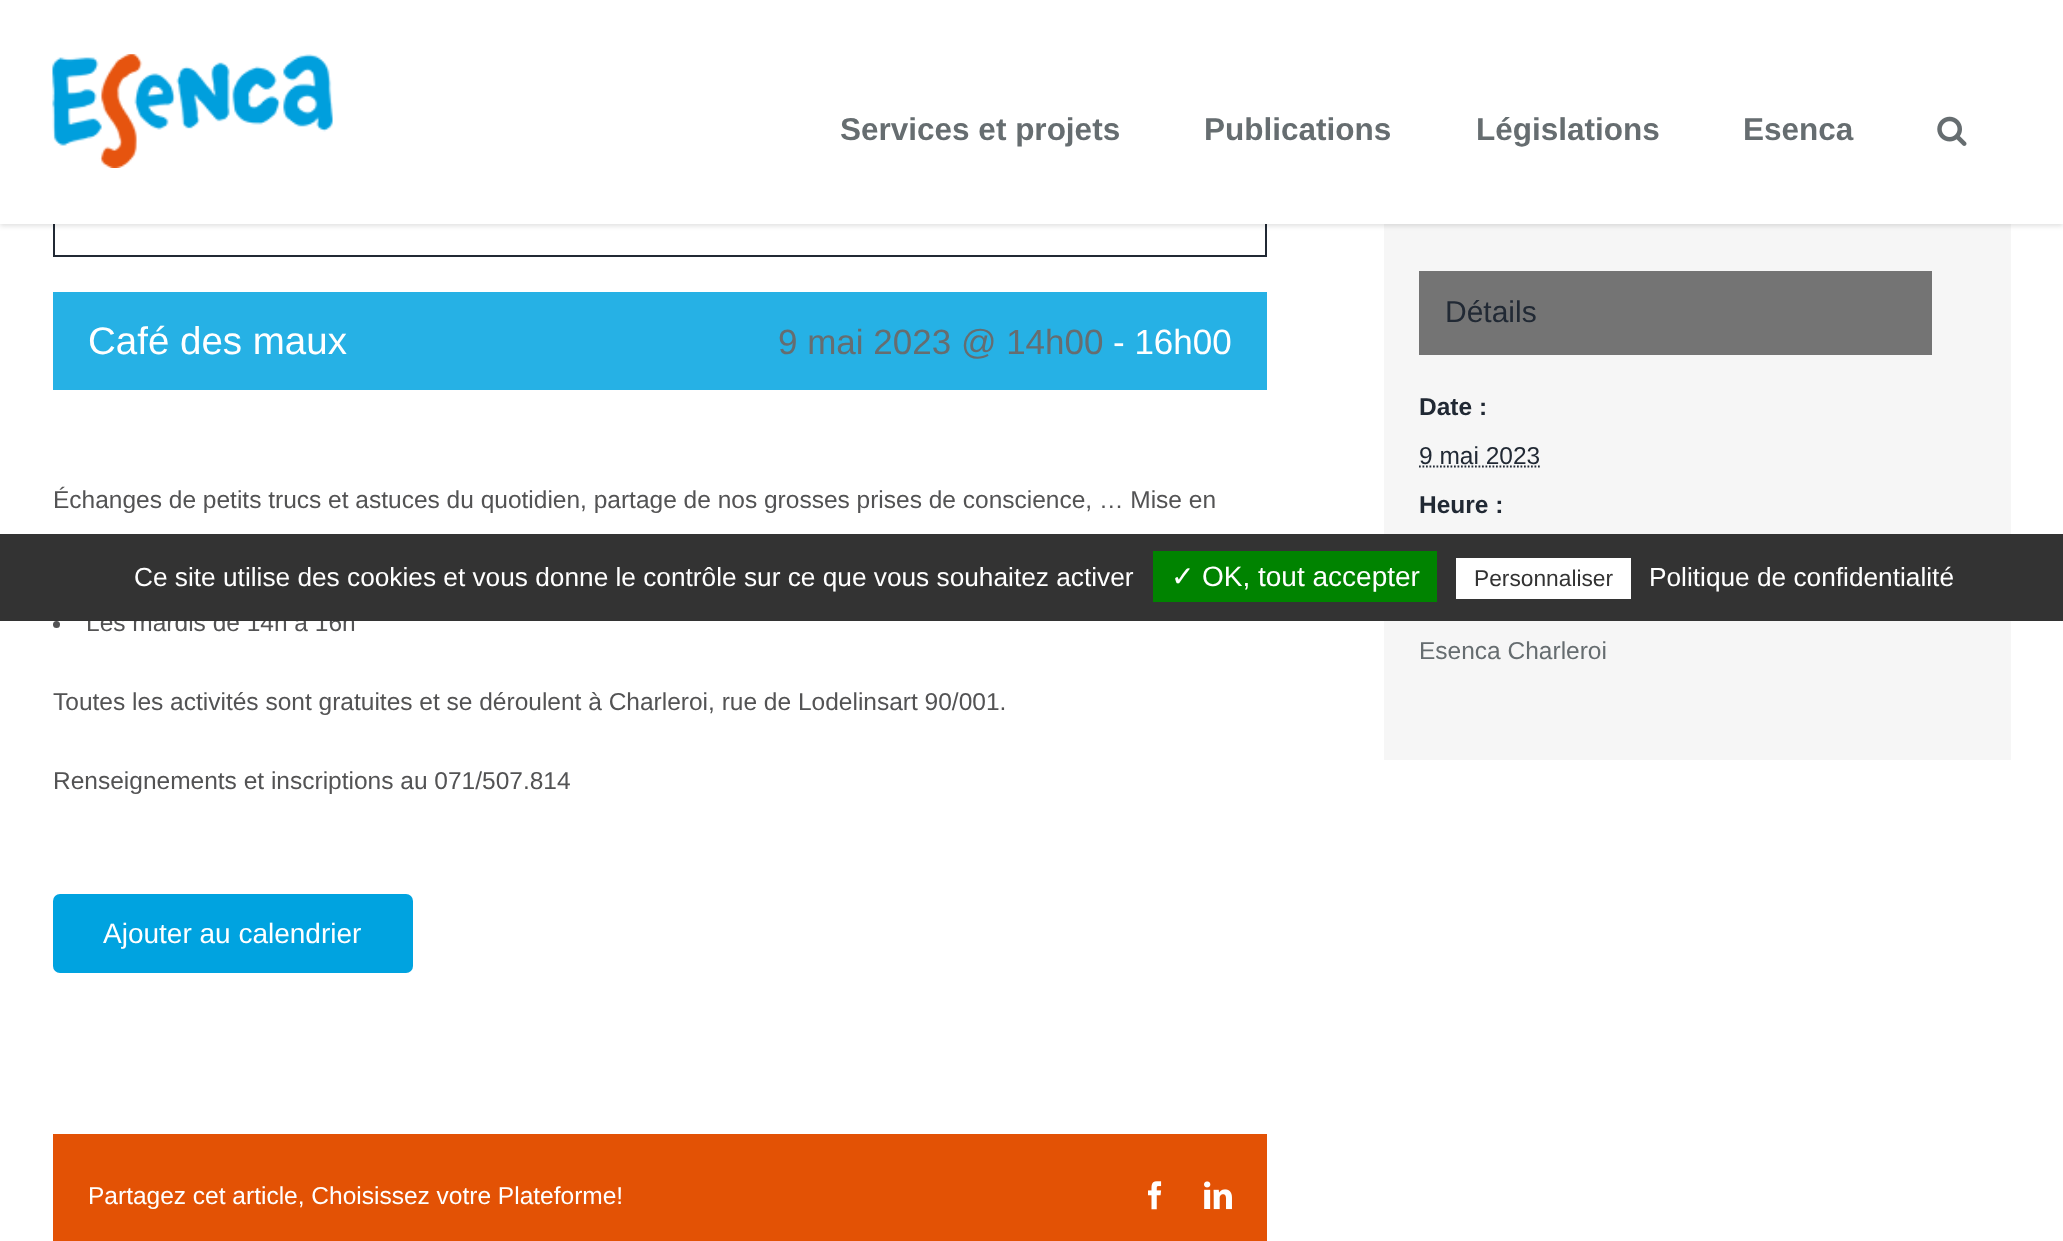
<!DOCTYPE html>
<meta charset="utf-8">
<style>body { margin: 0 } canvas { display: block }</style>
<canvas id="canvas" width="2063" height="1241"></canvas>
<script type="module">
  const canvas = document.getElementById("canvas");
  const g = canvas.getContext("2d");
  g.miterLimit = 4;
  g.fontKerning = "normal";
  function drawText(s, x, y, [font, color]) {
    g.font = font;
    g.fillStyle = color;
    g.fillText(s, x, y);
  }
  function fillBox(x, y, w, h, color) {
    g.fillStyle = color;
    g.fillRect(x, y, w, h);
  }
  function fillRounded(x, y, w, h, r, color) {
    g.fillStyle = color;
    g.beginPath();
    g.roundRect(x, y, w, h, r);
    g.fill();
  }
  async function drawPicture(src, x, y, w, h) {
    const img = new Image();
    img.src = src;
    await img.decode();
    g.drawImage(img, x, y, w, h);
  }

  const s1 = ["bold 31.5px Liberation Sans", "#666D70"];
  const s2 = ["38.5px Liberation Sans", "#FFFFFF"];
  const s3 = ["35px Liberation Sans", "#666D70"];
  const s4 = ["35px Liberation Sans", "#FFFFFF"];
  const s5 = ["24.5px Liberation Sans", "#535354"];
  const s6 = ["28px Liberation Sans", "#FFFFFF"];
  const s7 = ["24.5px Liberation Sans", "#FFFFFF"];
  const s8 = ["30px Liberation Sans", "#212934"];
  const s9 = ["bold 24.5px Liberation Sans", "#212934"];
  const s10 = ["24.5px Liberation Sans", "#212934"];
  const s11 = ["24.5px Liberation Sans", "#666D70"];
  const s12 = ["26.25px Liberation Sans", "#FFFFFF"];
  const s13 = ["28px DejaVu Sans", "#FFFFFF"];
  const s14 = ["22.75px Liberation Sans", "#333333"];

  fillBox(0, 0, 2063, 1241, "#FFFFFF");
  g.strokeStyle = "#212934";
  g.lineWidth = 2;
  g.strokeRect(54, 124, 1212, 132);
  fillBox(1384, 224, 627, 536, "#F6F6F6");
  g.fillStyle = "rgba(0, 0, 0, 0.12)";
  g.filter = "blur(2.5px)";
  g.beginPath();
  g.rect(0, 2, 2063, 224);
  g.fill();
  g.filter = "none";
  fillBox(0, 0, 2063, 224, "#FFFFFF");
  await drawPicture("pic1.png", 52, 54, 281, 114);
  drawText("Services et projets", 840, 140, s1);
  drawText("Publications", 1204, 140, s1);
  drawText("Législations", 1476, 140, s1);
  drawText("Esenca", 1743, 140, s1);
  await drawPicture("pic2.png", 1937, 116, 30, 30);
  fillBox(53, 292, 1214, 98, "#26B1E5");
  drawText("Café des maux", 88, 354, s2);
  drawText("9 mai 2023 @ 14h00", 778, 354, s3);
  drawText("- 16h00", 1113, 354, s4);
  drawText("Échanges de petits trucs et astuces du quotidien, partage de nos grosses prises de conscience, … Mise en", 53, 508, s5);
  g.beginPath();
  g.arc(56.5, 624.5, 3.5, 0, Math.PI * 2);
  g.fill();
  drawText("Les mardis de 14h à 16h", 86, 631, s5);
  drawText("Toutes les activités sont gratuites et se déroulent à Charleroi, rue de Lodelinsart 90/001.", 53, 710, s5);
  drawText("Renseignements et inscriptions au 071/507.814", 53, 789, s5);
  fillRounded(53, 894, 360, 79, 7, "#00A3E0");
  drawText("Ajouter au calendrier", 103, 943, s6);
  fillBox(53, 1134, 1214, 107, "#E35205");
  drawText("Partagez cet article, Choisissez votre Plateforme!", 88, 1204, s7);
  await drawPicture("pic3.png", 1148, 1181, 14, 29);
  await drawPicture("pic4.png", 1204, 1181, 28, 29);
  fillBox(1419, 271, 513, 84, "#747474");
  drawText("Détails", 1445, 322, s8);
  drawText("Date :", 1419, 415, s9);
  drawText("9 mai 2023", 1419, 464, s10);
  g.beginPath();
  g.moveTo(1419, 466.5);
  g.lineTo(1540.5, 466.5);
  g.lineWidth = 1.8;
  g.setLineDash([1.75, 1.75]);
  g.stroke();
  drawText("Heure :", 1419, 513, s9);
  drawText("Esenca Charleroi", 1419, 659, s11);
  fillBox(0, 534, 2063, 87, "#333333");
  drawText("Ce site utilise des cookies et vous donne le contrôle sur ce que vous souhaitez activer", 134, 586, s12);
  fillBox(1153, 551, 284, 51, "#008300");
  drawText("✓", 1171, 586, s13);
  drawText("OK, tout accepter", 1202, 586, s6);
  fillBox(1456, 558, 175, 41, "#FFFFFF");
  drawText("Personnaliser", 1474, 586, s14);
  drawText("Politique de confidentialité", 1649, 586, s12);
</script>
